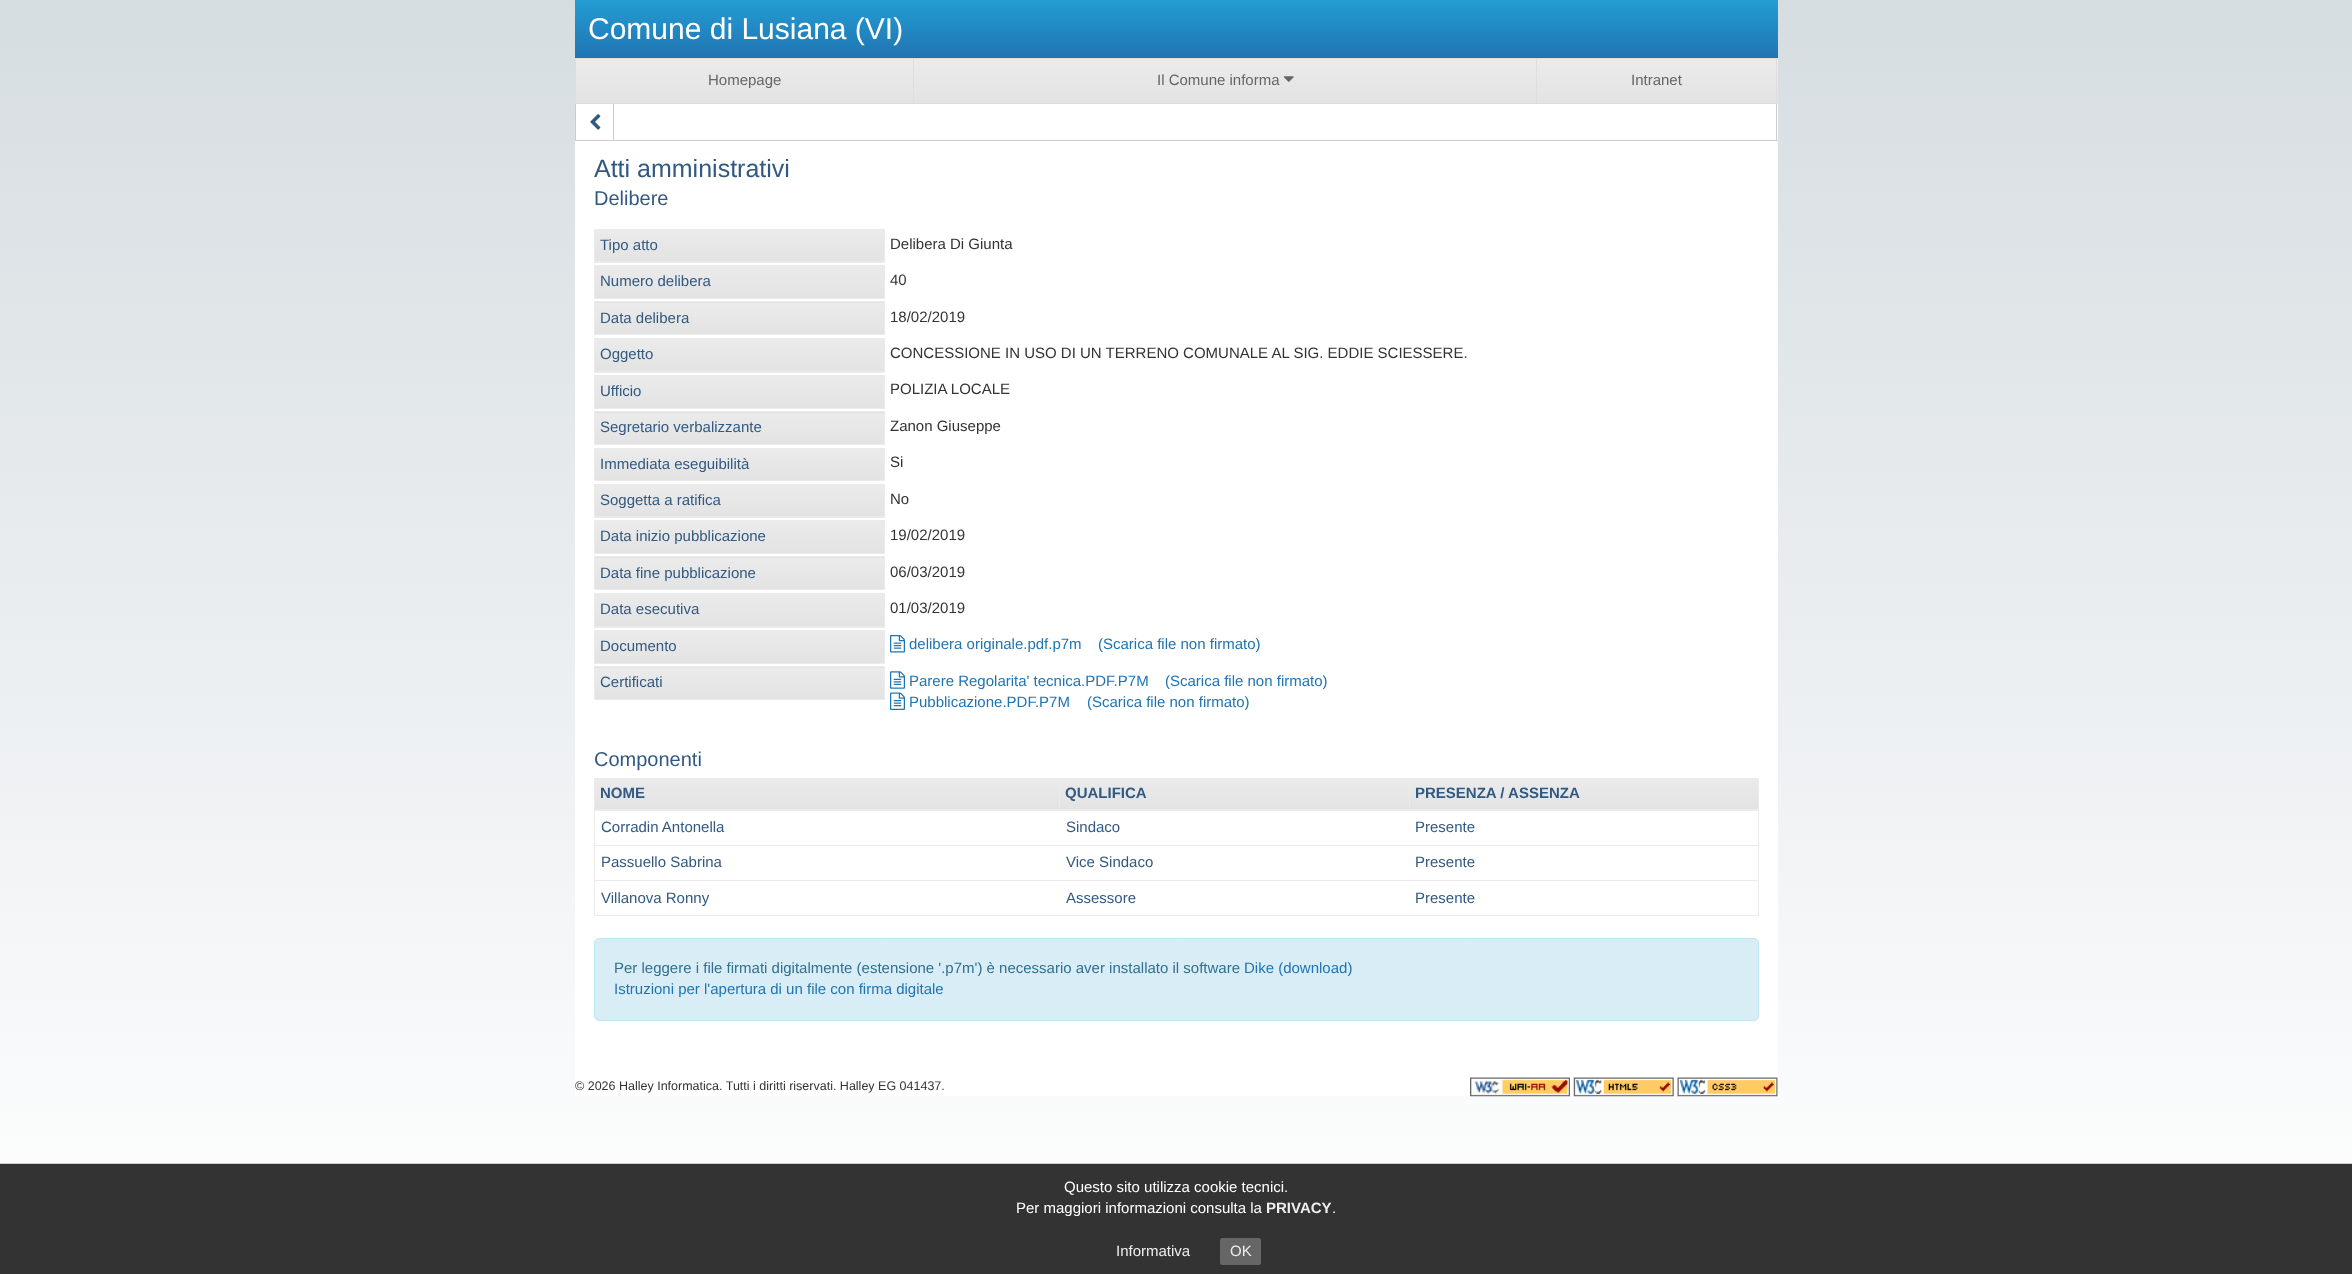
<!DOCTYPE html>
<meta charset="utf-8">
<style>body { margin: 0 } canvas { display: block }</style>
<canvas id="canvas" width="2352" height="1274"></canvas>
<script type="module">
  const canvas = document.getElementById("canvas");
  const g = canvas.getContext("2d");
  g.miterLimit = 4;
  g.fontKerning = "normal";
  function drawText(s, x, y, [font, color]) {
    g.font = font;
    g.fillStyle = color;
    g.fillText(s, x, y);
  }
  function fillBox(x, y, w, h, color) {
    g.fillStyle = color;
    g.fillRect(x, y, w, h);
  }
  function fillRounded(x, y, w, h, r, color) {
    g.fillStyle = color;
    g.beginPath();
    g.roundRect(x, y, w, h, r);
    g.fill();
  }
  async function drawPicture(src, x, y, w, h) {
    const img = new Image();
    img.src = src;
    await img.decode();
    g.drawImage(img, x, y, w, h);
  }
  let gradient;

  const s1 = ["30px Liberation Sans", "#FFFFFF"];
  const s2 = ["15px Liberation Sans", "#666666"];
  const s3 = ["25px Liberation Sans", "#325981"];
  const s4 = ["20px Liberation Sans", "#325981"];
  const s5 = ["15px Liberation Sans", "#325981"];
  const s6 = ["15px Liberation Sans", "#333333"];
  const s7 = ["15px Liberation Sans", "#1F74B2"];
  const s8 = ["bold 15px Liberation Sans", "#325981"];
  const s9 = ["15px Liberation Sans", "#31708F"];
  const s10 = ["12.5px Liberation Sans", "#333333"];
  const s11 = ["15px Liberation Sans", "#FFFFFF"];
  const s12 = ["bold 15px Liberation Sans", "#EEEEEE"];
  const s13 = ["15px Liberation Sans", "#EEEEEE"];

  fillBox(0, 0, 2352, 1274, "#FFFFFF");
  gradient = g.createLinearGradient(1176, 0, 1176, 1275);
  gradient.addColorStop(0, "#D6DDE1");
  gradient.addColorStop(1, "#FFFFFF");
  g.fillStyle = gradient;
  g.fillRect(0, 0, 2352, 1163);
  gradient = g.createLinearGradient(1176, 0, 1176, 58);
  gradient.addColorStop(0, "#249DD4");
  gradient.addColorStop(1, "#1F74B2");
  g.fillStyle = gradient;
  g.fillRect(575, 0, 1203, 58);
  drawText("Comune di Lusiana (VI)", 588, 39, s1);
  gradient = g.createLinearGradient(1176, 59, 1176, 104);
  gradient.addColorStop(0, "#EBEBEB");
  gradient.addColorStop(1, "#E3E3E3");
  g.fillStyle = gradient;
  g.fillRect(576, 59, 1202, 44);
  fillBox(575, 58, 1203, 1, "#DEDEDE");
  fillBox(575, 103, 961, 1, "#DEDEDE");
  fillBox(575, 59, 1, 45, "#DEDEDE");
  drawText("Homepage", 708, 85, s2);
  fillBox(913, 59, 1, 45, "#DEDEDE");
  drawText("Il Comune informa", 1157, 85, s2);
  await drawPicture("pic1.png", 1283, 76, 11, 6);
  fillBox(1776, 59, 1, 45, "#DEDEDE");
  fillBox(1536, 103, 242, 1, "#DEDEDE");
  fillBox(1536, 59, 1, 45, "#DEDEDE");
  drawText("Intranet", 1631, 85, s2);
  fillBox(576, 104, 1202, 36, "#FFFFFF");
  fillBox(1776, 104, 1, 37, "#CCCCCC");
  fillBox(575, 140, 1203, 1, "#CCCCCC");
  fillBox(575, 104, 1, 37, "#CCCCCC");
  fillBox(613, 104, 1, 37, "#CCCCCC");
  await drawPicture("pic2.png", 590, 114, 11, 16);
  fillBox(575, 141, 1203, 955, "#FFFFFF");
  drawText("Atti amministrativi", 594, 177, s3);
  drawText("Delibere", 594, 205, s4);
  gradient = g.createLinearGradient(739, 230, 739, 261);
  gradient.addColorStop(0, "#EBEBEB");
  gradient.addColorStop(1, "#E3E3E3");
  g.fillStyle = gradient;
  g.fillRect(595, 230, 289, 31);
  gradient = g.createLinearGradient(739, 261, 739, 293);
  gradient.addColorStop(0, "#EBEBEB");
  gradient.addColorStop(1, "#E3E3E3");
  g.fillStyle = gradient;
  g.fillRect(594, 261, 291, 1);
  g.strokeStyle = "#EBEBEB";
  g.strokeRect(594.5, 229.5, 290, 33);
  drawText("Tipo atto", 600, 250, s5);
  drawText("Delibera Di Giunta", 890, 249, s6);
  gradient = g.createLinearGradient(739, 266, 739, 298);
  gradient.addColorStop(0, "#EBEBEB");
  gradient.addColorStop(1, "#E3E3E3");
  g.fillStyle = gradient;
  g.fillRect(595, 266, 289, 32);
  g.strokeRect(594.5, 265.5, 290, 33);
  drawText("Numero delibera", 600, 286, s5);
  drawText("40", 890, 285, s6);
  gradient = g.createLinearGradient(739, 271, 739, 303);
  gradient.addColorStop(0, "#EBEBEB");
  gradient.addColorStop(1, "#E3E3E3");
  g.fillStyle = gradient;
  g.fillRect(594, 302, 291, 1);
  gradient = g.createLinearGradient(739, 303, 739, 334);
  gradient.addColorStop(0, "#EBEBEB");
  gradient.addColorStop(1, "#E3E3E3");
  g.fillStyle = gradient;
  g.fillRect(595, 303, 289, 31);
  g.strokeRect(594.5, 301.5, 290, 33);
  drawText("Data delibera", 600, 323, s5);
  drawText("18/02/2019", 890, 322, s6);
  gradient = g.createLinearGradient(739, 339, 739, 371);
  gradient.addColorStop(0, "#EBEBEB");
  gradient.addColorStop(1, "#E3E3E3");
  g.fillStyle = gradient;
  g.fillRect(595, 339, 289, 32);
  gradient = g.createLinearGradient(739, 371, 739, 404);
  gradient.addColorStop(0, "#EBEBEB");
  gradient.addColorStop(1, "#E3E3E3");
  g.fillStyle = gradient;
  g.fillRect(594, 371, 291, 1);
  g.strokeRect(594.5, 338.5, 290, 34);
  drawText("Oggetto", 600, 359, s5);
  drawText("CONCESSIONE IN USO DI UN TERRENO COMUNALE AL SIG. EDDIE SCIESSERE.", 890, 358, s6);
  gradient = g.createLinearGradient(739, 376, 739, 408);
  gradient.addColorStop(0, "#EBEBEB");
  gradient.addColorStop(1, "#E3E3E3");
  g.fillStyle = gradient;
  g.fillRect(595, 376, 289, 32);
  g.strokeRect(594.5, 375.5, 290, 33);
  drawText("Ufficio", 600, 396, s5);
  drawText("POLIZIA LOCALE", 890, 394, s6);
  gradient = g.createLinearGradient(739, 381, 739, 413);
  gradient.addColorStop(0, "#EBEBEB");
  gradient.addColorStop(1, "#E3E3E3");
  g.fillStyle = gradient;
  g.fillRect(594, 412, 291, 1);
  gradient = g.createLinearGradient(739, 413, 739, 444);
  gradient.addColorStop(0, "#EBEBEB");
  gradient.addColorStop(1, "#E3E3E3");
  g.fillStyle = gradient;
  g.fillRect(595, 413, 289, 31);
  g.strokeRect(594.5, 411.5, 290, 33);
  drawText("Segretario verbalizzante", 600, 432, s5);
  drawText("Zanon Giuseppe", 890, 431, s6);
  gradient = g.createLinearGradient(739, 449, 739, 480);
  gradient.addColorStop(0, "#EBEBEB");
  gradient.addColorStop(1, "#E3E3E3");
  g.fillStyle = gradient;
  g.fillRect(595, 449, 289, 31);
  g.strokeRect(594.5, 448.5, 290, 32);
  drawText("Immediata eseguibilità", 600, 469, s5);
  drawText("Si", 890, 467, s6);
  gradient = g.createLinearGradient(739, 485, 739, 516);
  gradient.addColorStop(0, "#EBEBEB");
  gradient.addColorStop(1, "#E3E3E3");
  g.fillStyle = gradient;
  g.fillRect(595, 485, 289, 31);
  gradient = g.createLinearGradient(739, 516, 739, 548);
  gradient.addColorStop(0, "#EBEBEB");
  gradient.addColorStop(1, "#E3E3E3");
  g.fillStyle = gradient;
  g.fillRect(594, 516, 291, 1);
  g.strokeRect(594.5, 484.5, 290, 33);
  drawText("Soggetta a ratifica", 600, 505, s5);
  drawText("No", 890, 504, s6);
  gradient = g.createLinearGradient(739, 521, 739, 553);
  gradient.addColorStop(0, "#EBEBEB");
  gradient.addColorStop(1, "#E3E3E3");
  g.fillStyle = gradient;
  g.fillRect(595, 521, 289, 32);
  g.strokeRect(594.5, 520.5, 290, 33);
  drawText("Data inizio pubblicazione", 600, 541, s5);
  drawText("19/02/2019", 890, 540, s6);
  gradient = g.createLinearGradient(739, 526, 739, 558);
  gradient.addColorStop(0, "#EBEBEB");
  gradient.addColorStop(1, "#E3E3E3");
  g.fillStyle = gradient;
  g.fillRect(594, 557, 291, 1);
  gradient = g.createLinearGradient(739, 558, 739, 589);
  gradient.addColorStop(0, "#EBEBEB");
  gradient.addColorStop(1, "#E3E3E3");
  g.fillStyle = gradient;
  g.fillRect(595, 558, 289, 31);
  g.strokeRect(594.5, 556.5, 290, 33);
  drawText("Data fine pubblicazione", 600, 578, s5);
  drawText("06/03/2019", 890, 577, s6);
  gradient = g.createLinearGradient(739, 594, 739, 626);
  gradient.addColorStop(0, "#EBEBEB");
  gradient.addColorStop(1, "#E3E3E3");
  g.fillStyle = gradient;
  g.fillRect(595, 594, 289, 32);
  gradient = g.createLinearGradient(739, 626, 739, 659);
  gradient.addColorStop(0, "#EBEBEB");
  gradient.addColorStop(1, "#E3E3E3");
  g.fillStyle = gradient;
  g.fillRect(594, 626, 291, 1);
  g.strokeRect(594.5, 593.5, 290, 34);
  drawText("Data esecutiva", 600, 614, s5);
  drawText("01/03/2019", 890, 613, s6);
  gradient = g.createLinearGradient(739, 631, 739, 663);
  gradient.addColorStop(0, "#EBEBEB");
  gradient.addColorStop(1, "#E3E3E3");
  g.fillStyle = gradient;
  g.fillRect(595, 631, 289, 32);
  g.strokeRect(594.5, 630.5, 290, 33);
  drawText("Documento", 600, 651, s5);
  await drawPicture("pic3.png", 890, 635, 15, 18);
  drawText("delibera originale.pdf.p7m", 909, 649, s7);
  drawText("(Scarica file non firmato)", 1098, 649, s7);
  gradient = g.createLinearGradient(739, 636, 739, 668);
  gradient.addColorStop(0, "#EBEBEB");
  gradient.addColorStop(1, "#E3E3E3");
  g.fillStyle = gradient;
  g.fillRect(594, 667, 291, 1);
  gradient = g.createLinearGradient(739, 668, 739, 699);
  gradient.addColorStop(0, "#EBEBEB");
  gradient.addColorStop(1, "#E3E3E3");
  g.fillStyle = gradient;
  g.fillRect(595, 668, 289, 31);
  g.strokeRect(594.5, 666.5, 290, 33);
  drawText("Certificati", 600, 687, s5);
  await drawPicture("pic4.png", 890, 671, 15, 18);
  drawText("Parere Regolarita' tecnica.PDF.P7M", 909, 686, s7);
  drawText("(Scarica file non firmato)", 1165, 686, s7);
  await drawPicture("pic5.png", 890, 692, 15, 18);
  drawText("Pubblicazione.PDF.P7M", 909, 707, s7);
  drawText("(Scarica file non firmato)", 1087, 707, s7);
  drawText("Componenti", 594, 766, s4);
  fillBox(594, 778, 1165, 1, "#EBEBEB");
  gradient = g.createLinearGradient(1583, 809, 1583, 840);
  gradient.addColorStop(0, "#EBEBEB");
  gradient.addColorStop(1, "#E3E3E3");
  g.fillStyle = gradient;
  g.fillRect(1409, 809, 350, 1);
  fillBox(1758, 778, 1, 138, "#EBEBEB");
  fillBox(594, 915, 1165, 1, "#EBEBEB");
  fillBox(594, 778, 1, 138, "#EBEBEB");
  gradient = g.createLinearGradient(827, 778, 827, 809);
  gradient.addColorStop(0, "#EBEBEB");
  gradient.addColorStop(1, "#E3E3E3");
  g.fillStyle = gradient;
  g.fillRect(595, 779, 464, 30);
  gradient = g.createLinearGradient(827, 809, 827, 840);
  gradient.addColorStop(0, "#EBEBEB");
  gradient.addColorStop(1, "#E3E3E3");
  g.fillStyle = gradient;
  g.fillRect(595, 809, 465, 1);
  fillBox(1409, 810, 350, 1, "#EBEBEB");
  fillBox(1409, 778, 1, 33, "#EBEBEB");
  fillBox(1059, 810, 351, 1, "#EBEBEB");
  fillBox(1059, 778, 1, 33, "#EBEBEB");
  fillBox(594, 810, 466, 1, "#EBEBEB");
  drawText("NOME", 600, 798, s8);
  gradient = g.createLinearGradient(1234, 778, 1234, 809);
  gradient.addColorStop(0, "#EBEBEB");
  gradient.addColorStop(1, "#E3E3E3");
  g.fillStyle = gradient;
  g.fillRect(1060, 779, 349, 30);
  gradient = g.createLinearGradient(1234, 809, 1234, 840);
  gradient.addColorStop(0, "#EBEBEB");
  gradient.addColorStop(1, "#E3E3E3");
  g.fillStyle = gradient;
  g.fillRect(1060, 809, 349, 1);
  drawText("QUALIFICA", 1065, 798, s8);
  gradient = g.createLinearGradient(1583, 778, 1583, 809);
  gradient.addColorStop(0, "#EBEBEB");
  gradient.addColorStop(1, "#E3E3E3");
  g.fillStyle = gradient;
  g.fillRect(1410, 779, 348, 30);
  drawText("PRESENZA / ASSENZA", 1415, 798, s8);
  drawText("Corradin Antonella", 601, 832, s5);
  drawText("Sindaco", 1066, 832, s5);
  fillBox(594, 845, 1165, 1, "#EBEBEB");
  drawText("Presente", 1415, 832, s5);
  drawText("Passuello Sabrina", 601, 867, s5);
  drawText("Vice Sindaco", 1066, 867, s5);
  fillBox(594, 880, 1165, 1, "#EBEBEB");
  drawText("Presente", 1415, 867, s5);
  drawText("Villanova Ronny", 601, 903, s5);
  drawText("Assessore", 1066, 903, s5);
  drawText("Presente", 1415, 903, s5);
  g.fillStyle = "#D9EDF7";
  g.beginPath();
  g.roundRect(594.5, 938.5, 1164, 82, 4.5);
  g.fill();
  g.strokeStyle = "#BCE8F1";
  g.stroke();
  drawText("Per leggere i file firmati digitalmente (estensione '.p7m') è necessario aver installato il software", 614, 973, s9);
  drawText("Dike (download)", 1244, 973, s7);
  drawText("Istruzioni per l'apertura di un file con firma digitale", 614, 994, s7);
  drawText("© 2026 Halley Informatica. Tutti i diritti riservati. Halley EG 041437.", 575, 1090, s10);
  await drawPicture("pic6.png", 1470, 1077, 100, 20);
  await drawPicture("pic7.png", 1573, 1077, 101, 20);
  await drawPicture("pic8.png", 1677, 1077, 101, 20);
  fillBox(0, 1164, 2352, 110, "#333333");
  fillBox(0, 1163, 2352, 1, "#CCCCCC");
  drawText("Questo sito utilizza cookie tecnici.", 1064, 1192, s11);
  drawText("Per maggiori informazioni consulta la", 1016, 1213, s11);
  drawText("PRIVACY", 1266, 1213, s12);
  drawText(".", 1332, 1213, s11);
  drawText("Informativa", 1116, 1256, s13);
  fillRounded(1220, 1238, 41, 27, 2.5, "#666666");
  drawText("OK", 1230, 1256, s13);
</script>
